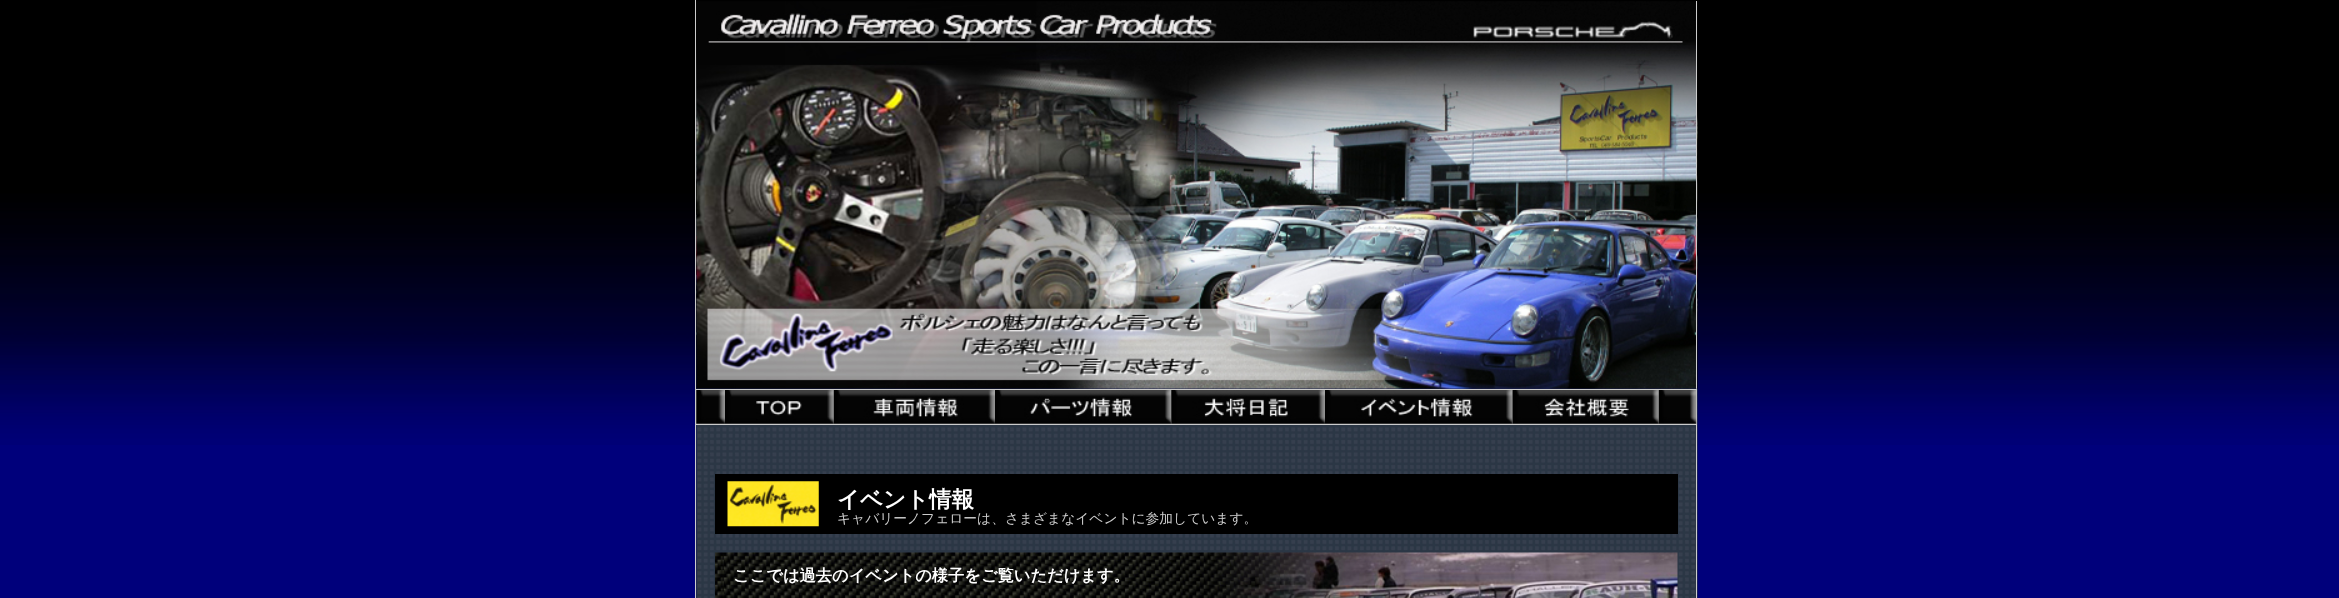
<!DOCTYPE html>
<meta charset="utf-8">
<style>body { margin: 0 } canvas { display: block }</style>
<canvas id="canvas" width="2339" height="598"></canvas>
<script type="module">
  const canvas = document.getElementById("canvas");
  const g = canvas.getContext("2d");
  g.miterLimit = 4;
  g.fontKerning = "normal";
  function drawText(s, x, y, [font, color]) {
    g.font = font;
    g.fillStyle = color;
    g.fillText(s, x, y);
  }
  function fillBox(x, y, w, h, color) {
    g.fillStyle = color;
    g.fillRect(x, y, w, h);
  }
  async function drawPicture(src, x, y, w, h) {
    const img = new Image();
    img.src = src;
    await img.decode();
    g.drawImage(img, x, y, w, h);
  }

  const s1 = ["bold 22.5px WenQuanYi Zen Hei", "#FFFFFF"];
  const s2 = ["500 13.75px WenQuanYi Zen Hei", "#CCCCCC"];
  const s3 = ["bold 16.25px WenQuanYi Zen Hei", "#FFFFFF"];

  fillBox(0, 0, 2339, 598, "#00007B");
  await drawPicture("pic1.png", 0, 0, 2339, 445);
  fillBox(695, 0, 1, 598, "#CCCCCC");
  await drawPicture("pic2.png", 696, 1, 1002, 388);
  fillBox(1696, 1, 1, 388, "#CCCCCC");
  await drawPicture("pic3.png", 696, 388, 1002, 210);
  fillBox(1696, 389, 1, 209, "#CCCCCC");
  fillBox(696, 389, 1000, 36, "#CCCCCC");
  await drawPicture("pic4.png", 696, 390, 29, 34);
  await drawPicture("pic5.png", 725, 390, 109, 34);
  await drawPicture("pic6.png", 833, 390, 162, 34);
  await drawPicture("pic7.png", 995, 390, 177, 34);
  await drawPicture("pic8.png", 1171, 390, 154, 34);
  await drawPicture("pic9.png", 1325, 390, 188, 34);
  await drawPicture("pic10.png", 1512, 390, 147, 34);
  await drawPicture("pic11.png", 1658, 390, 39, 34);
  fillBox(715, 474, 104, 60, "#000000");
  await drawPicture("pic12.png", 727, 481, 92, 46);
  fillBox(819, 474, 859, 60, "#000000");
  drawText("イベント情報", 837, 507, s1);
  drawText("キャバリーノフェローは、さまざまなイベントに参加しています。", 837, 523, s2);
  await drawPicture("pic13.png", 715, 552, 963, 46);
  drawText("ここでは過去のイベントの様子をご覧いただけます。", 733, 581, s3);
</script>
